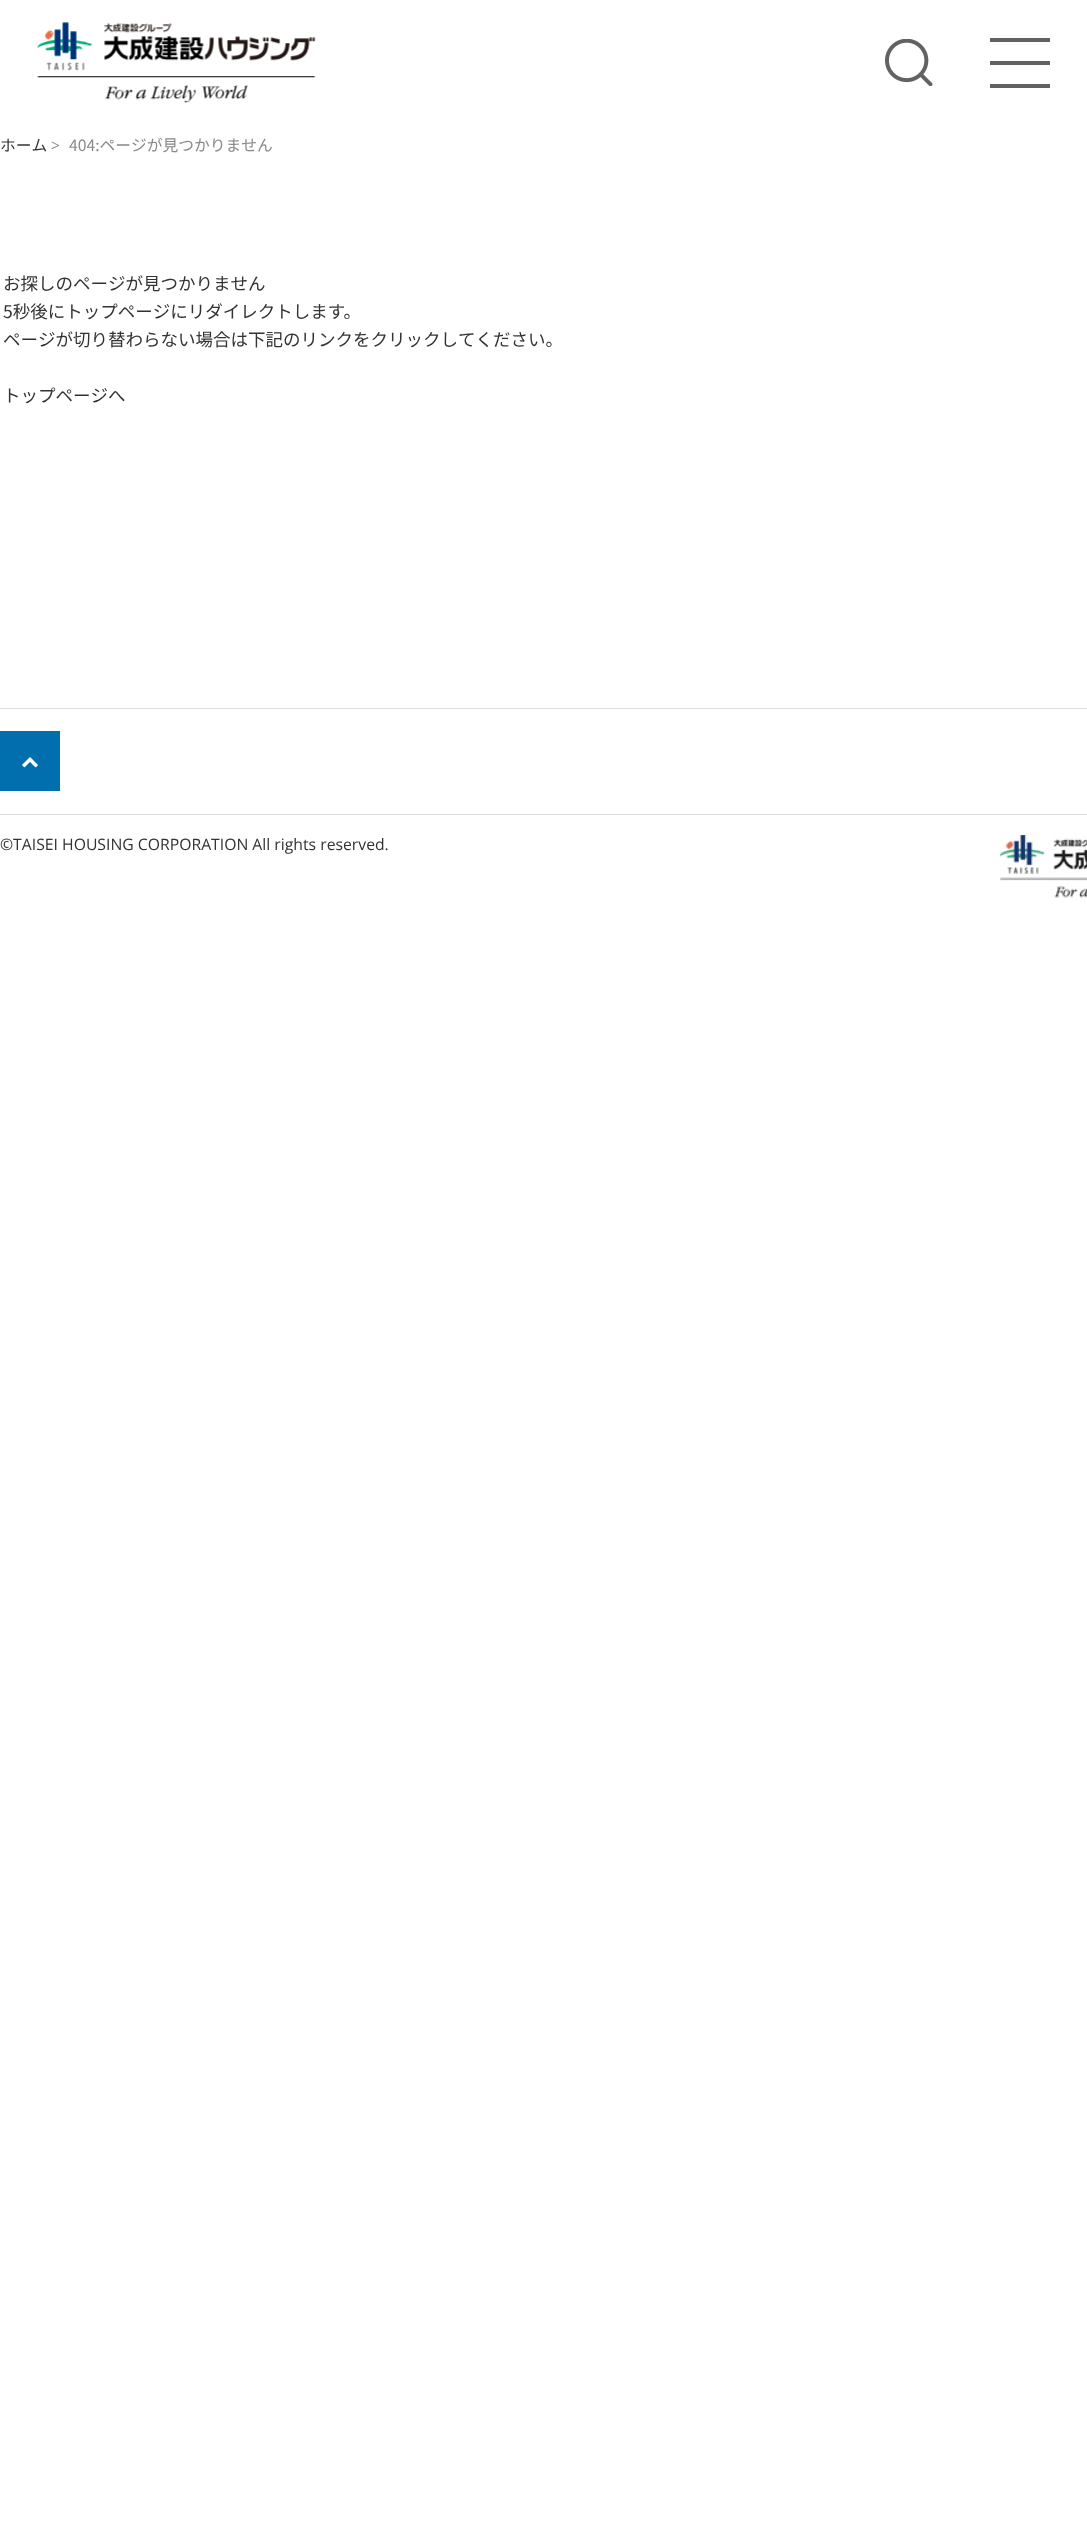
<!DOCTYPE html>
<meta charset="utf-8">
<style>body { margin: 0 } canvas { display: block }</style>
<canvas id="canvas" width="1087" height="2541"></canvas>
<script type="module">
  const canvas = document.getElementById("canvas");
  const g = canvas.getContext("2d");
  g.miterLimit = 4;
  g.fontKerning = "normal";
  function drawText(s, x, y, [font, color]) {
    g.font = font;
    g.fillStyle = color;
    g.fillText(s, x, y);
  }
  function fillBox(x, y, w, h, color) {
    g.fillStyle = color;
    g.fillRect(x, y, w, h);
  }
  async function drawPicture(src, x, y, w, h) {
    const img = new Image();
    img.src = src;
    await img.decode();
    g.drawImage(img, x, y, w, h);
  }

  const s1 = ["15.75px Noto Sans JP", "#333333"];
  const s2 = ["15.75px Open Sans", "#888888"];
  const s3 = ["15.75px Noto Sans JP", "#888888"];
  const s4 = ["17.5px Noto Sans JP", "#333333"];
  const s5 = ["15.75px Open Sans", "#333333"];

  fillBox(0, 0, 1087, 2541, "#FFFFFF");
  await drawPicture("pic1.png", 37, 22, 279, 81);
  await drawPicture("pic2.png", 885, 39, 48, 47);
  fillBox(990, 38, 60, 4, "#626262");
  fillBox(990, 61, 60, 4, "#626262");
  fillBox(990, 84, 60, 4, "#626262");
  drawText("ホーム", 0, 151, s1);
  drawText(">", 51, 151, s2);
  drawText("404:ページが見つかりません", 69, 151, s3);
  drawText("お探しのページが見つかりません", 3, 290, s4);
  drawText("5秒後にトップページにリダイレクトします。", 3, 318, s4);
  drawText("ページが切り替わらない場合は下記のリンクをクリックしてください。", 3, 346, s4);
  drawText("トップページへ", 3, 402, s4);
  fillBox(0, 708, 1087, 1, "#DDDDDD");
  fillBox(0, 731, 60, 60, "#016FAE");
  await drawPicture("pic3.png", 22, 757, 16, 11);
  fillBox(0, 814, 1087, 1, "#DDDDDD");
  drawText("©TAISEI HOUSING CORPORATION All rights reserved.", 0, 850, s5);
  await drawPicture("pic4.png", 1000, 835, 87, 63);
</script>
